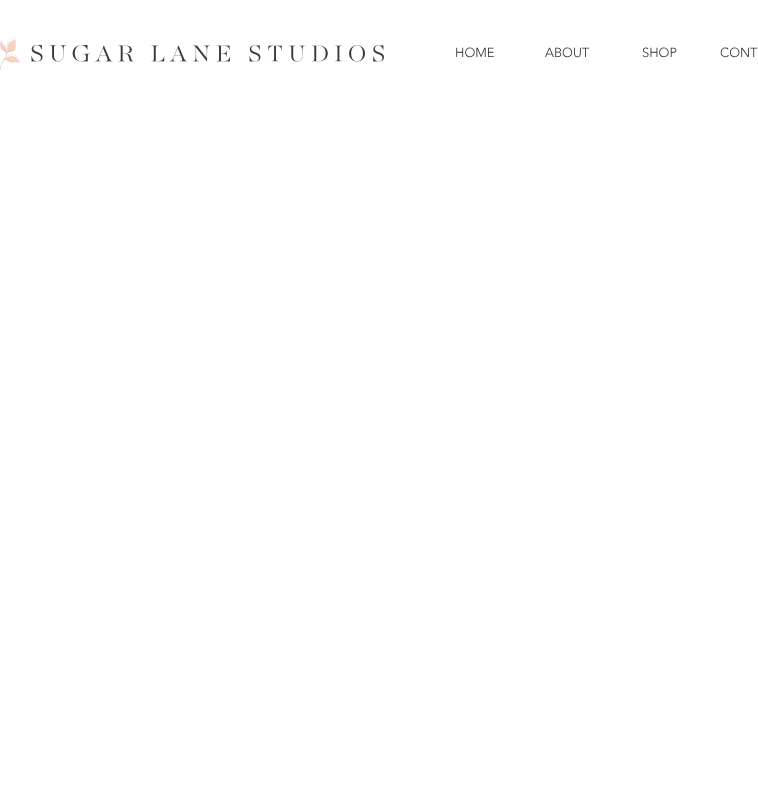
<!DOCTYPE html>
<meta charset="utf-8">
<style>body { margin: 0 } canvas { display: block }</style>
<canvas id="canvas" width="758" height="809"></canvas>
<script type="module">
  const canvas = document.getElementById("canvas");
  const g = canvas.getContext("2d");
  g.miterLimit = 4;
  g.fontKerning = "normal";
  function drawText(s, x, y, [font, color]) {
    g.font = font;
    g.fillStyle = color;
    g.fillText(s, x, y);
  }
  function fillBox(x, y, w, h, color) {
    g.fillStyle = color;
    g.fillRect(x, y, w, h);
  }
  async function drawPicture(src, x, y, w, h) {
    const img = new Image();
    img.src = src;
    await img.decode();
    g.drawImage(img, x, y, w, h);
  }

  const s1 = ["300 13px 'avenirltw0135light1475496'", "#333333"];

  fillBox(0, 0, 758, 809, "#FFFFFF");
  await drawPicture("pic1.png", 0, 38, 384, 32);
  drawText("HOME", 455, 57, s1);
  drawText("ABOUT", 545, 57, s1);
  drawText("SHOP", 642, 57, s1);
  drawText("CONT", 720, 57, s1);
</script>
